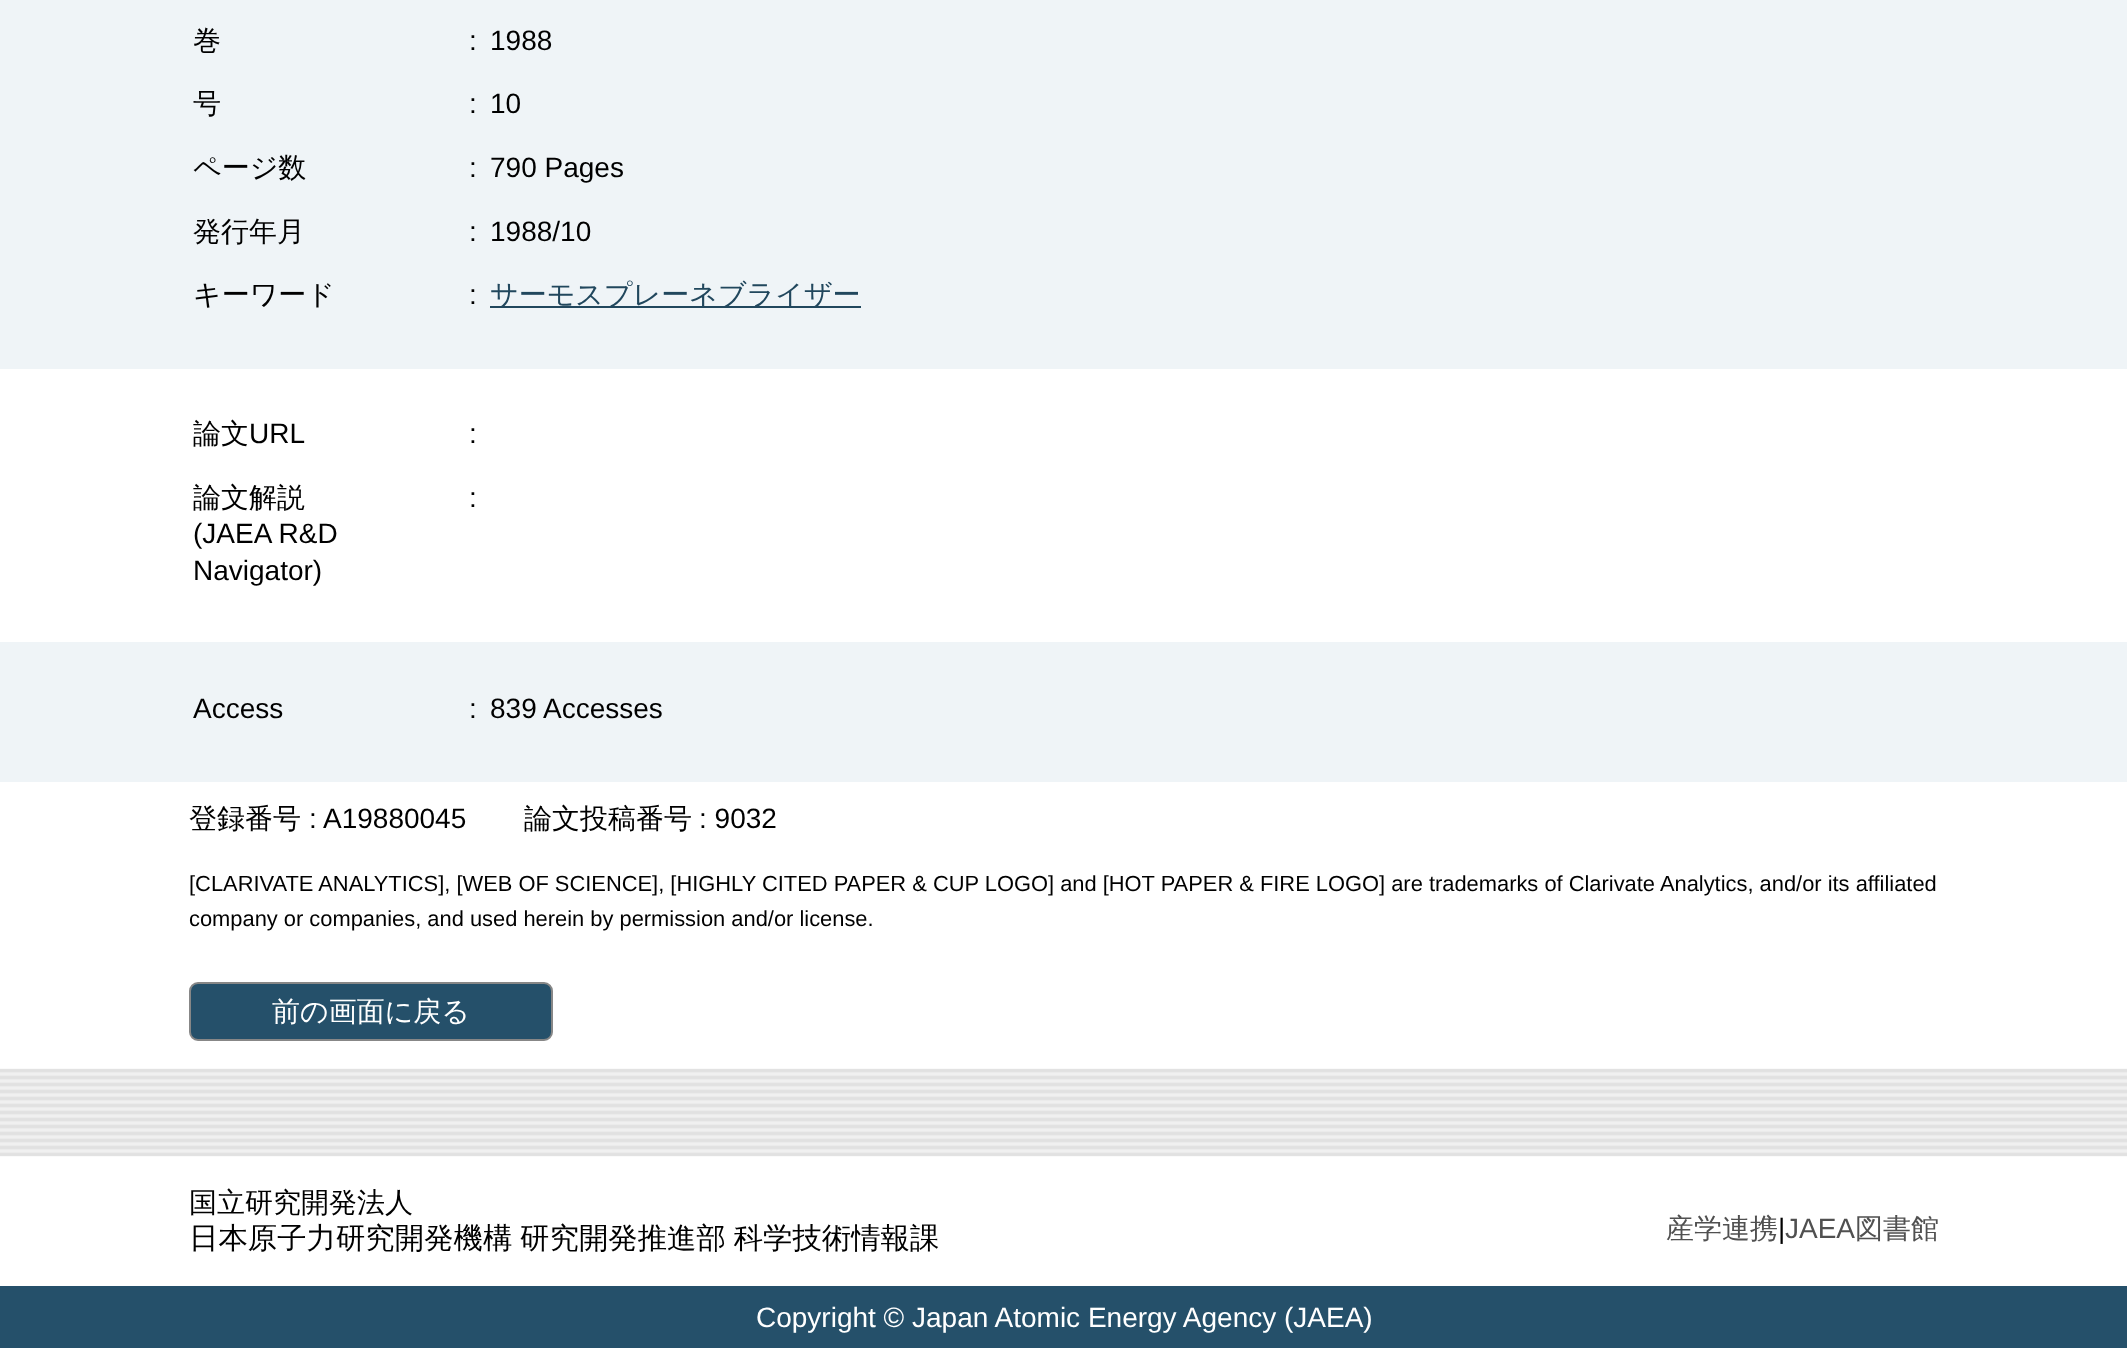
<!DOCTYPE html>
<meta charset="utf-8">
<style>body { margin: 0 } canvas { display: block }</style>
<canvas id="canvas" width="2127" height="1348"></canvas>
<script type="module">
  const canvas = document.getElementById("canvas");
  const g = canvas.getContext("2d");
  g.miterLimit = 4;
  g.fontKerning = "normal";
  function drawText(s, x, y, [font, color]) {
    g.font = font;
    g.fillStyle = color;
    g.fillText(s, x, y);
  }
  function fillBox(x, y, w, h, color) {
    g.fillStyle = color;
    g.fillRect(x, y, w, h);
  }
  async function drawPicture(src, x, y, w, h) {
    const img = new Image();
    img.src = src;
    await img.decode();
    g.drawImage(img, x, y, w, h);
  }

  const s1 = ["500 28px WenQuanYi Zen Hei", "#000000"];
  const s2 = ["28px Liberation Sans", "#000000"];
  const s3 = ["500 28px WenQuanYi Zen Hei", "#21475D"];
  const s4 = ["21.88px Liberation Sans", "#000000"];
  const s5 = ["500 28px WenQuanYi Zen Hei", "#FFFFFF"];
  const s6 = ["500 29.4px WenQuanYi Zen Hei", "#000000"];
  const s7 = ["500 28px WenQuanYi Zen Hei", "#505050"];
  const s8 = ["28px Liberation Sans", "#505050"];
  const s9 = ["28px Liberation Sans", "#FFFFFF"];

  fillBox(0, 0, 2127, 1348, "#FFFFFF");
  fillBox(0, 0, 2127, 369, "#EFF4F7");
  drawText("巻", 193, 50, s1);
  drawText(":", 469, 50, s2);
  drawText("1988", 490, 50, s2);
  drawText("号", 193, 113, s1);
  drawText(":", 469, 113, s2);
  drawText("10", 490, 113, s2);
  drawText("ページ数", 193, 177, s1);
  drawText(":", 469, 177, s2);
  drawText("790 Pages", 490, 177, s2);
  drawText("発行年月", 193, 241, s1);
  drawText(":", 469, 241, s2);
  drawText("1988/10", 490, 241, s2);
  drawText("キーワード", 193, 304, s1);
  drawText(":", 469, 304, s2);
  fillBox(490, 306, 371, 2, "#21475D");
  drawText("サーモスプレーネブライザー", 490, 304, s3);
  drawText("論文", 193, 443, s1);
  drawText("URL", 249, 443, s2);
  drawText(":", 469, 443, s2);
  drawText("論文解説", 193, 507, s1);
  drawText("(JAEA R&D", 193, 543, s2);
  drawText("Navigator)", 193, 580, s2);
  drawText(":", 469, 507, s2);
  fillBox(0, 642, 2127, 140, "#EFF4F7");
  drawText("Access", 193, 718, s2);
  drawText(":", 469, 718, s2);
  drawText("839 Accesses", 490, 718, s2);
  drawText("登録番号", 189, 828, s1);
  drawText(": A19880045", 309, 828, s2);
  drawText("論文投稿番号", 524, 828, s1);
  drawText(": 9032", 699, 828, s2);
  drawText("[CLARIVATE ANALYTICS], [WEB OF SCIENCE], [HIGHLY CITED PAPER & CUP LOGO] and [HOT PAPER & FIRE LOGO] are trademarks of Clarivate Analytics, and/or its affiliated", 189, 891, s4);
  drawText("company or companies, and used herein by permission and/or license.", 189, 926, s4);
  g.fillStyle = "#25506A";
  g.beginPath();
  g.roundRect(190, 983, 362, 57, 8);
  g.fill();
  g.strokeStyle = "#878787";
  g.lineWidth = 2;
  g.stroke();
  drawText("前の画面に戻る", 272, 1021, s5);
  await drawPicture("pic1.png", 0, 1068, 2127, 89);
  drawText("国立研究開発法人", 189, 1212, s1);
  g.wordSpacing = "-1px";
  drawText("日本原子力研究開発機構 研究開発推進部 科学技術情報課", 189, 1248, s6);
  g.wordSpacing = "0px";
  drawText("産学連携", 1666, 1238, s7);
  drawText("|", 1778, 1238, s2);
  drawText("JAEA", 1785, 1238, s8);
  drawText("図書館", 1855, 1238, s7);
  fillBox(0, 1286, 2127, 62, "#25506A");
  drawText("Copyright © Japan Atomic Energy Agency (JAEA)", 756, 1327, s9);
</script>
